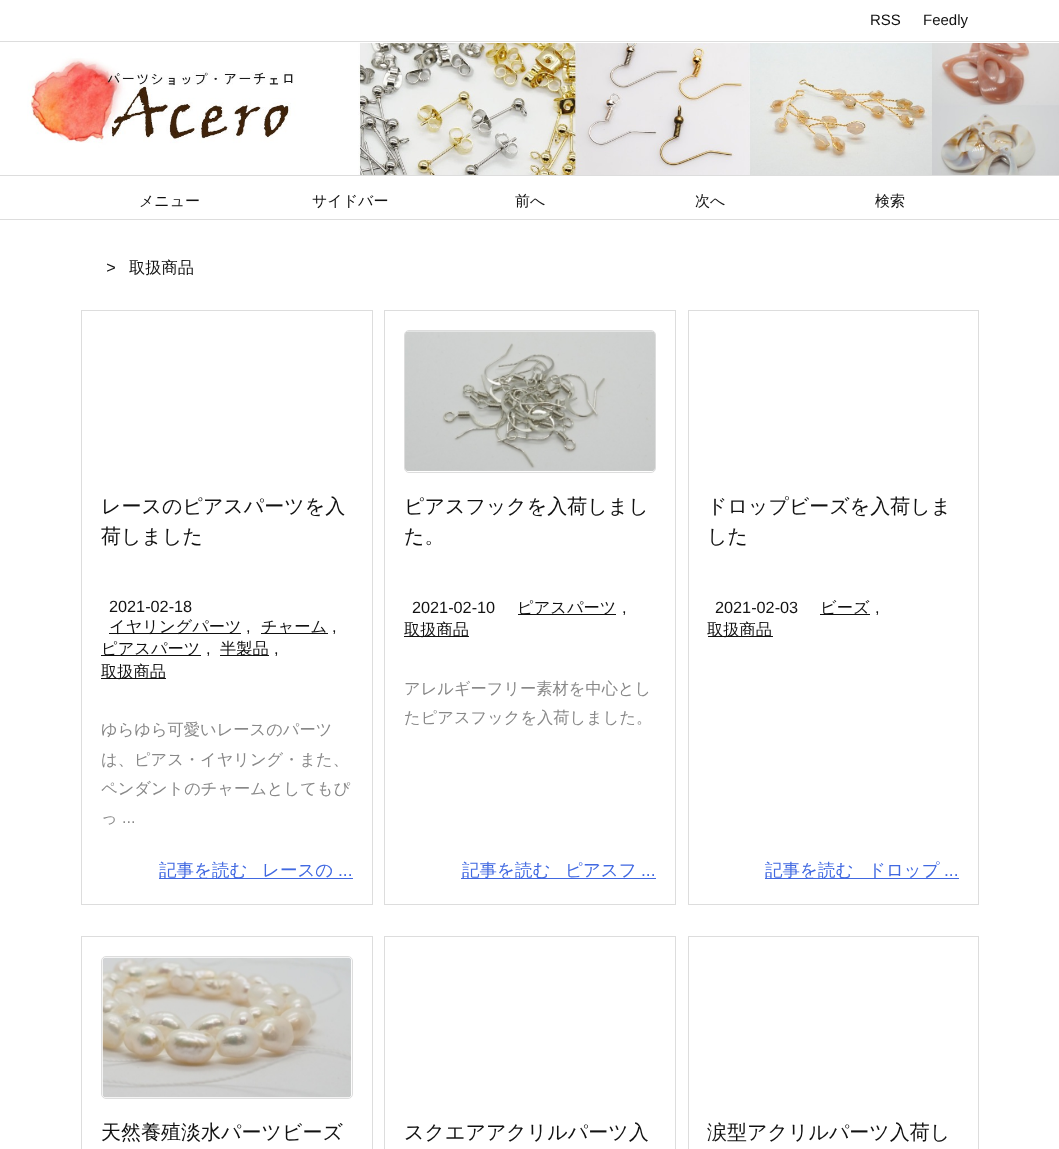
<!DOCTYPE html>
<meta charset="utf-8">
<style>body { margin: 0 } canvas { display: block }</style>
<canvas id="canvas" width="1059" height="1149"></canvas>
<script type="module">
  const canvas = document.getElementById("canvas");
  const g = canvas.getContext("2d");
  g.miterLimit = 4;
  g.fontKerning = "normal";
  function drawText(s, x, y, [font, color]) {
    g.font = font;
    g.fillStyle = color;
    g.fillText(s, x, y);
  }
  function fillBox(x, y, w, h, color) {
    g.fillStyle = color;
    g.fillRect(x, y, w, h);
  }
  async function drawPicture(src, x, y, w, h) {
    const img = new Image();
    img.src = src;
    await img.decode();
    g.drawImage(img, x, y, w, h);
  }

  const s1 = ["15px Liberation Sans", "#111111"];
  const s2 = ["500 15px WenQuanYi Zen Hei", "#111111"];
  const s3 = ["italic 16.25px Liberation Sans", "#111111"];
  const s4 = ["500 16.25px WenQuanYi Zen Hei", "#111111"];
  const s5 = ["500 20px WenQuanYi Zen Hei", "#111111"];
  const s6 = ["16.25px Liberation Sans", "#111111"];
  const s7 = ["500 16.25px WenQuanYi Zen Hei", "#888888"];
  const s8 = ["16.25px Liberation Sans", "#888888"];
  const s9 = ["500 17.5px WenQuanYi Zen Hei", "#4169E1"];
  const s10 = ["17.5px Liberation Sans", "#4169E1"];

  fillBox(0, 0, 1059, 1149, "#FFFFFF");
  fillBox(0, 41, 1059, 1, "#DDDDDD");
  drawText("RSS", 870, 25, s1);
  drawText("Feedly", 923, 25, s1);
  fillBox(0, 175, 1059, 1, "#DDDDDD");
  fillBox(0, 219, 1059, 1, "#DDDDDD");
  drawText("メニュー", 139, 206, s2);
  drawText("サイドバー", 312, 206, s2);
  drawText("前へ", 515, 206, s2);
  drawText("次へ", 695, 206, s2);
  drawText("検索", 875, 206, s2);
  await drawPicture("pic1.png", 27, 43, 1032, 132);
  drawText(">", 106, 273, s3);
  drawText("取扱商品", 129, 273, s4);
  g.strokeStyle = "#DDDDDD";
  g.strokeRect(81.5, 310.5, 291, 594);
  drawText("レースのピアスパーツを入", 101, 513, s5);
  drawText("荷しました", 101, 543, s5);
  drawText("2021-02-18", 109, 612, s6);
  fillBox(109, 633, 132, 1, "#111111");
  drawText("イヤリングパーツ", 109, 632, s4);
  drawText(",", 246, 632, s6);
  fillBox(261, 633, 67, 1, "#111111");
  drawText("チャーム", 261, 632, s4);
  drawText(",", 332, 632, s6);
  fillBox(101, 655, 100, 1, "#111111");
  drawText("ピアスパーツ", 101, 654, s4);
  drawText(",", 206, 654, s6);
  fillBox(220, 655, 49, 1, "#111111");
  drawText("半製品", 220, 654, s4);
  drawText(",", 274, 654, s6);
  fillBox(101, 678, 65, 1, "#111111");
  drawText("取扱商品", 101, 677, s4);
  drawText("ゆらゆら可愛いレースのパーツ", 101, 735, s7);
  drawText("は、ピアス・イヤリング・また、", 101, 765, s7);
  drawText("ペンダントのチャームとしてもぴ", 101, 794, s7);
  drawText("っ", 101, 823, s7);
  drawText("...", 122, 823, s8);
  fillBox(159, 878, 194, 1, "#4169E1");
  drawText("記事を読む", 159, 876, s9);
  drawText("レースの", 262, 876, s9);
  drawText("...", 338, 876, s10);
  g.strokeRect(384.5, 310.5, 291, 594);
  g.beginPath();
  g.roundRect(404.5, 330.5, 251, 142, 4.5);
  g.stroke();
  await drawPicture("pic2.png", 405, 331, 250, 140);
  drawText("ピアスフックを入荷しまし", 404, 513, s5);
  drawText("た。", 404, 543, s5);
  fillBox(518, 614, 98, 1, "#111111");
  drawText("ピアスパーツ", 517, 613, s4);
  drawText(",", 622, 613, s6);
  fillBox(404, 636, 65, 1, "#111111");
  drawText("取扱商品", 404, 635, s4);
  drawText("2021-02-10", 412, 613, s6);
  drawText("アレルギーフリー素材を中心とし", 404, 694, s7);
  drawText("たピアスフックを入荷しました。", 404, 723, s7);
  fillBox(461, 878, 195, 1, "#4169E1");
  drawText("記事を読む", 462, 876, s9);
  drawText("ピアスフ", 565, 876, s9);
  drawText("...", 641, 876, s10);
  g.strokeRect(688.5, 310.5, 290, 594);
  drawText("ドロップビーズを入荷しま", 707, 513, s5);
  drawText("した", 707, 543, s5);
  fillBox(820, 614, 50, 1, "#111111");
  drawText("ビーズ", 820, 613, s4);
  drawText(",", 875, 613, s6);
  fillBox(708, 636, 65, 1, "#111111");
  drawText("取扱商品", 707, 635, s4);
  drawText("2021-02-03", 715, 613, s6);
  fillBox(765, 878, 194, 1, "#4169E1");
  drawText("記事を読む", 765, 876, s9);
  drawText("ドロップ", 868, 876, s9);
  drawText("...", 944, 876, s10);
  g.strokeRect(81.5, 936.5, 291, 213);
  g.beginPath();
  g.roundRect(101.5, 956.5, 251, 142, 4.5);
  g.stroke();
  await drawPicture("pic3.png", 102, 957, 250, 141);
  drawText("天然養殖淡水パーツビーズ", 101, 1139, s5);
  g.strokeRect(384.5, 936.5, 291, 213);
  drawText("スクエアアクリルパーツ入", 404, 1139, s5);
  g.strokeRect(688.5, 936.5, 290, 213);
  drawText("涙型アクリルパーツ入荷し", 707, 1139, s5);
</script>
